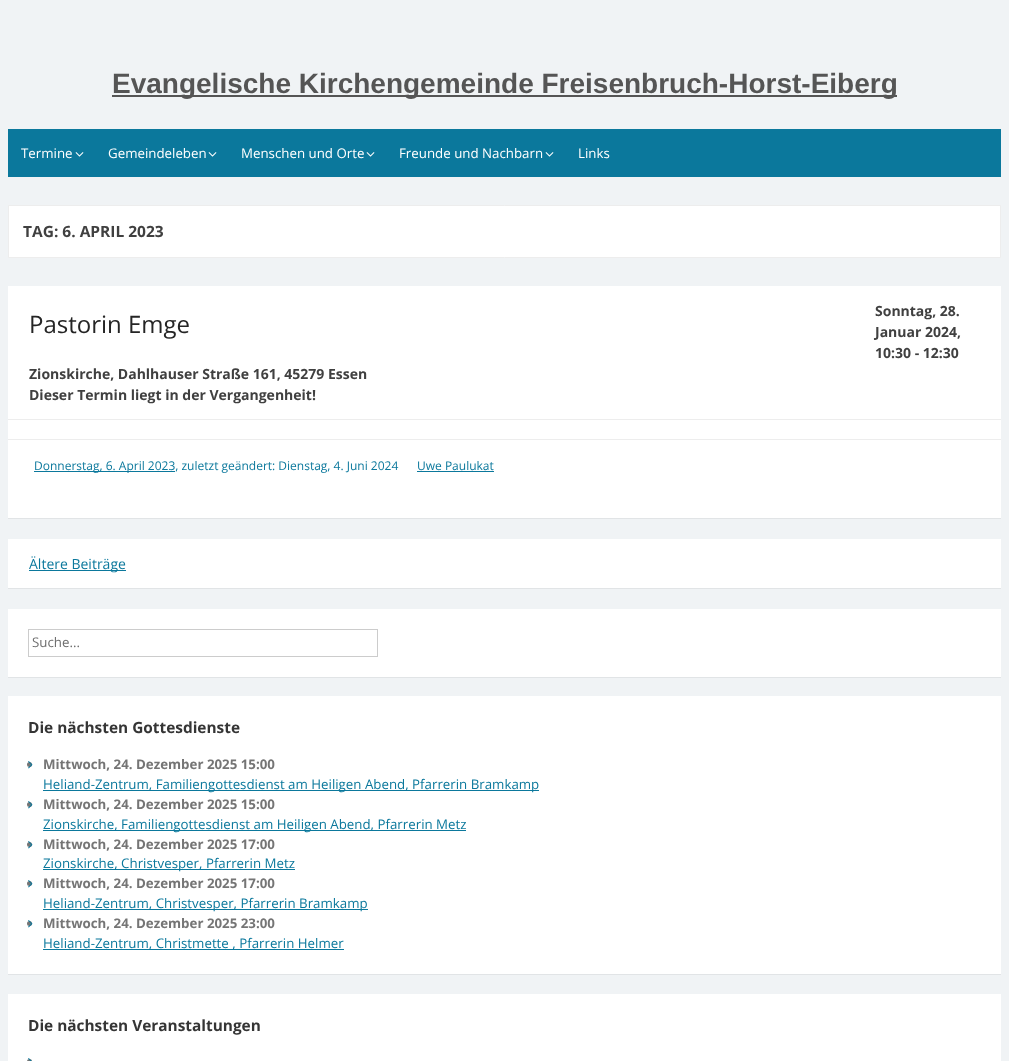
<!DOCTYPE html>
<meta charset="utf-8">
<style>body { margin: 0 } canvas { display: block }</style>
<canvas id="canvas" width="1009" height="1061"></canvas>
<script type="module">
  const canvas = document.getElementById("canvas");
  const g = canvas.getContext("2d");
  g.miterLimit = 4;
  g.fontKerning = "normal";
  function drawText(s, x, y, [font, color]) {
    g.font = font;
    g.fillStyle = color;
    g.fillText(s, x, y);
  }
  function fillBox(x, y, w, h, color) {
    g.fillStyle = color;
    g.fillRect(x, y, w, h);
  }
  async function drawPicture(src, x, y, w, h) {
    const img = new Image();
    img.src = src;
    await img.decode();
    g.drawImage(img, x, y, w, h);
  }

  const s1 = ["bold 28px Liberation Sans", "#555555"];
  const s2 = ["13.3px Open Sans", "#FFFFFF"];
  const s3 = ["bold 15.5px Open Sans", "#404040"];
  const s4 = ["bold 14px Open Sans", "#404040"];
  const s5 = ["24px Open Sans", "#252525"];
  const s6 = ["12px Open Sans", "#0B789C"];
  const s7 = ["14px Open Sans", "#0B789C"];
  const s8 = ["13.3px Open Sans", "#6E6E6E"];
  const s9 = ["bold 15.4px Open Sans", "#353535"];
  const s10 = ["bold 13.3px Open Sans", "#757575"];
  const s11 = ["13.3px Open Sans", "#0B789C"];

  fillBox(0, 0, 1009, 1061, "#F0F3F5");
  fillBox(112, 95, 785, 2, "#555555");
  drawText("Evangelische Kirchengemeinde Freisenbruch-Horst-Eiberg", 112, 93, s1);
  fillBox(8, 129, 993, 48, "#0B789C");
  drawText("Termine", 21, 158, s2);
  await drawPicture("pic1.png", 75, 152, 9, 5);
  drawText("Gemeindeleben", 108, 158, s2);
  await drawPicture("pic1.png", 208, 152, 9, 5);
  drawText("Menschen und Orte", 241, 158, s2);
  await drawPicture("pic1.png", 366, 152, 9, 5);
  drawText("Freunde und Nachbarn", 399, 158, s2);
  await drawPicture("pic1.png", 545, 152, 9, 5);
  drawText("Links", 578, 158, s2);
  g.beginPath();
  g.rect(8.5, 205.5, 992, 52);
  g.fill();
  g.strokeStyle = "#EDEDED";
  g.stroke();
  drawText("TAG: 6. APRIL 2023", 23, 237, s3);
  g.fillStyle = "rgba(0, 0, 0, 0.06)";
  g.filter = "blur(0.5px)";
  g.beginPath();
  g.rect(8, 287, 993, 232);
  g.fill();
  g.filter = "none";
  fillBox(8, 286, 993, 232, "#FFFFFF");
  fillBox(8, 419, 993, 1, "#EDEDED");
  drawText("Sonntag, 28.", 875, 316, s4);
  drawText("Januar 2024,", 875, 337, s4);
  drawText("10:30 - 12:30", 875, 358, s4);
  drawText("Zionskirche, Dahlhauser Straße 161, 45279 Essen", 29, 379, s4);
  drawText("Dieser Termin liegt in der Vergangenheit!", 29, 400, s4);
  drawText("Pastorin Emge", 29, 333, s5);
  fillBox(8, 439, 993, 1, "#EDEDED");
  fillBox(34, 471, 141, 1, "#0B789C");
  drawText("Donnerstag, 6. April 2023, zuletzt geändert: Dienstag, 4. Juni 2024", 34, 470, s6);
  drawText("Uwe Paulukat", 417, 470, s6);
  fillBox(417, 471, 77, 1, "#0B789C");
  g.fillStyle = "rgba(0, 0, 0, 0.06)";
  g.filter = "blur(0.5px)";
  g.beginPath();
  g.rect(8, 540, 993, 49);
  g.fill();
  g.filter = "none";
  fillBox(8, 539, 993, 49, "#FFFFFF");
  fillBox(29, 570, 97, 1, "#0B789C");
  drawText("Ältere Beiträge", 29, 569, s7);
  g.fillStyle = "rgba(0, 0, 0, 0.06)";
  g.filter = "blur(0.5px)";
  g.beginPath();
  g.rect(8, 610, 993, 68);
  g.fill();
  g.filter = "none";
  fillBox(8, 609, 993, 68, "#FFFFFF");
  g.strokeStyle = "#CCCCCC";
  g.strokeRect(28.5, 629.5, 349, 27);
  drawText("Suche...", 32, 647, s8);
  g.fillStyle = "rgba(0, 0, 0, 0.06)";
  g.filter = "blur(0.5px)";
  g.beginPath();
  g.rect(8, 697, 993, 278);
  g.fill();
  g.filter = "none";
  fillBox(8, 696, 993, 278, "#FFFFFF");
  drawText("Die nächsten Gottesdienste", 28, 733, s9);
  g.fillStyle = "#757575";
  g.beginPath();
  g.arc(29.5, 764.5, 2.5, 0, Math.PI * 2);
  g.fill();
  await drawPicture("pic2.png", 28, 761, 5, 8);
  drawText("Mittwoch, 24. Dezember 2025 15:00", 43, 769, s10);
  fillBox(43, 790, 496, 1, "#0B789C");
  drawText("Heliand-Zentrum, Familiengottesdienst am Heiligen Abend, Pfarrerin Bramkamp", 43, 789, s11);
  g.fillStyle = "#757575";
  g.beginPath();
  g.arc(29.5, 804.5, 2.5, 0, Math.PI * 2);
  g.fill();
  await drawPicture("pic2.png", 28, 801, 5, 8);
  drawText("Mittwoch, 24. Dezember 2025 15:00", 43, 809, s10);
  fillBox(43, 830, 423, 1, "#0B789C");
  drawText("Zionskirche, Familiengottesdienst am Heiligen Abend, Pfarrerin Metz", 43, 829, s11);
  g.fillStyle = "#757575";
  g.beginPath();
  g.arc(29.5, 844.5, 2.5, 0, Math.PI * 2);
  g.fill();
  await drawPicture("pic2.png", 28, 841, 5, 8);
  drawText("Mittwoch, 24. Dezember 2025 17:00", 43, 849, s10);
  fillBox(43, 869, 252, 1, "#0B789C");
  drawText("Zionskirche, Christvesper, Pfarrerin Metz", 43, 868, s11);
  g.fillStyle = "#757575";
  g.beginPath();
  g.arc(29.5, 883.5, 2.5, 0, Math.PI * 2);
  g.fill();
  await drawPicture("pic2.png", 28, 880, 5, 8);
  drawText("Mittwoch, 24. Dezember 2025 17:00", 43, 888, s10);
  fillBox(43, 909, 325, 1, "#0B789C");
  drawText("Heliand-Zentrum, Christvesper, Pfarrerin Bramkamp", 43, 908, s11);
  g.fillStyle = "#757575";
  g.beginPath();
  g.arc(29.5, 923.5, 2.5, 0, Math.PI * 2);
  g.fill();
  await drawPicture("pic2.png", 28, 920, 5, 8);
  drawText("Mittwoch, 24. Dezember 2025 23:00", 43, 928, s10);
  fillBox(43, 949, 301, 1, "#0B789C");
  drawText("Heliand-Zentrum, Christmette , Pfarrerin Helmer", 43, 948, s11);
  fillBox(8, 994, 993, 67, "#FFFFFF");
  drawText("Die nächsten Veranstaltungen", 28, 1031, s9);
  g.fillStyle = "#757575";
  g.beginPath();
  g.arc(29.5, 1061.5, 2.5, 0, Math.PI * 2);
  g.fill();
  await drawPicture("pic3.png", 28, 1058, 4, 3);
</script>
